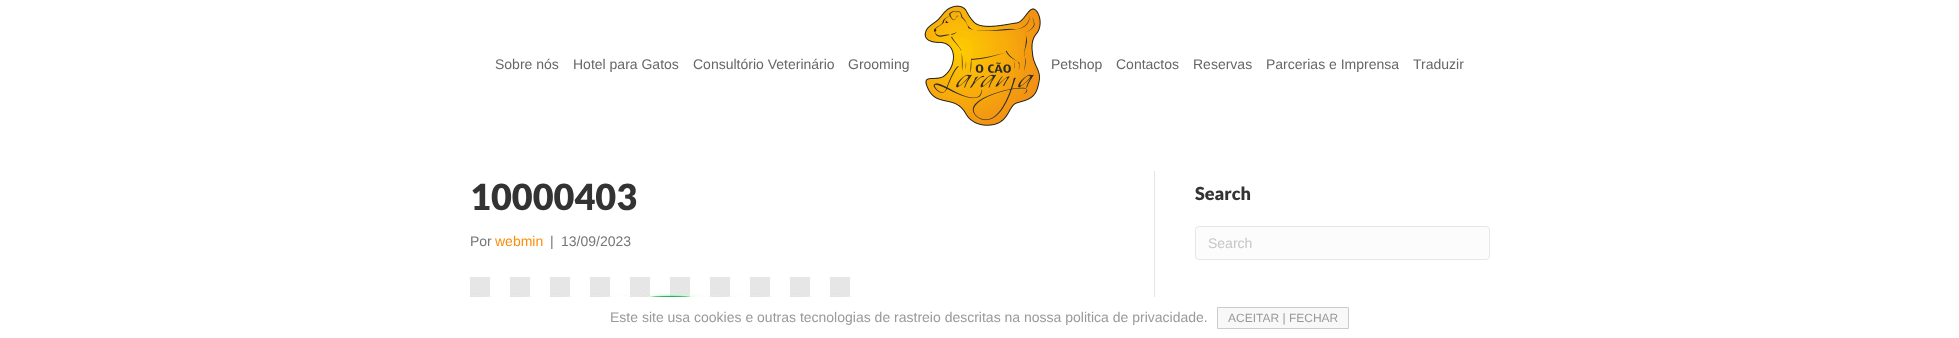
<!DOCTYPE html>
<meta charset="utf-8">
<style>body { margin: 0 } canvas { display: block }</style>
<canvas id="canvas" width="1959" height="338"></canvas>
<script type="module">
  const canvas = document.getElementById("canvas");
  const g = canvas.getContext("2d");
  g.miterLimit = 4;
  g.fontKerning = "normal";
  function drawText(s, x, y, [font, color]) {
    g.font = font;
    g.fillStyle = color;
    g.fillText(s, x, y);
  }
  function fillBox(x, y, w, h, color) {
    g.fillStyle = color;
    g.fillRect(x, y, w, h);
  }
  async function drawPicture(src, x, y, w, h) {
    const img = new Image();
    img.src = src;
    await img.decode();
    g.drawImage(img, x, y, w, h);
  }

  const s1 = ["14px Liberation Sans", "#666666"];
  const s2 = ["900 36px Lato", "#333333"];
  const s3 = ["14px Liberation Sans", "#757575"];
  const s4 = ["14px Liberation Sans", "#FA8E0A"];
  const s5 = ["900 18px Lato", "#333333"];
  const s6 = ["14px Liberation Sans", "#C6C6C6"];
  const s7 = ["14px Liberation Sans", "#999999"];
  const s8 = ["12px Liberation Sans", "#999999"];

  fillBox(0, 0, 1959, 338, "#FFFFFF");
  drawText("Sobre nós", 495, 69, s1);
  drawText("Hotel para Gatos", 573, 69, s1);
  drawText("Consultório Veterinário", 693, 69, s1);
  drawText("Grooming", 848, 69, s1);
  await drawPicture("pic1.png", 924, 5, 117, 121);
  drawText("Petshop", 1051, 69, s1);
  drawText("Contactos", 1116, 69, s1);
  drawText("Reservas", 1193, 69, s1);
  drawText("Parcerias e Imprensa", 1266, 69, s1);
  drawText("Traduzir", 1413, 69, s1);
  fillBox(1154, 171, 1, 126, "#E6E6E6");
  drawText("10000403", 470, 210, s2);
  drawText("Por", 470, 246, s3);
  drawText("webmin", 495, 246, s4);
  drawText("|", 550, 246, s3);
  drawText("13/09/2023", 561, 246, s3);
  await drawPicture("pic2.png", 470, 277, 400, 20);
  drawText("Search", 1195, 200, s5);
  g.fillStyle = "#FCFCFC";
  g.beginPath();
  g.roundRect(1195.5, 226.5, 294, 33, 3.5);
  g.fill();
  g.strokeStyle = "#E6E6E6";
  g.stroke();
  drawText("Search", 1208, 248, s6);
  drawText("Este site usa cookies e outras tecnologias de rastreio descritas na nossa politica de privacidade.", 610, 322, s7);
  g.fillStyle = "#F8F8F8";
  g.beginPath();
  g.rect(1217.5, 307.5, 131, 21);
  g.fill();
  g.strokeStyle = "#CCCCCC";
  g.stroke();
  drawText("ACEITAR | FECHAR", 1228, 322, s8);
</script>
